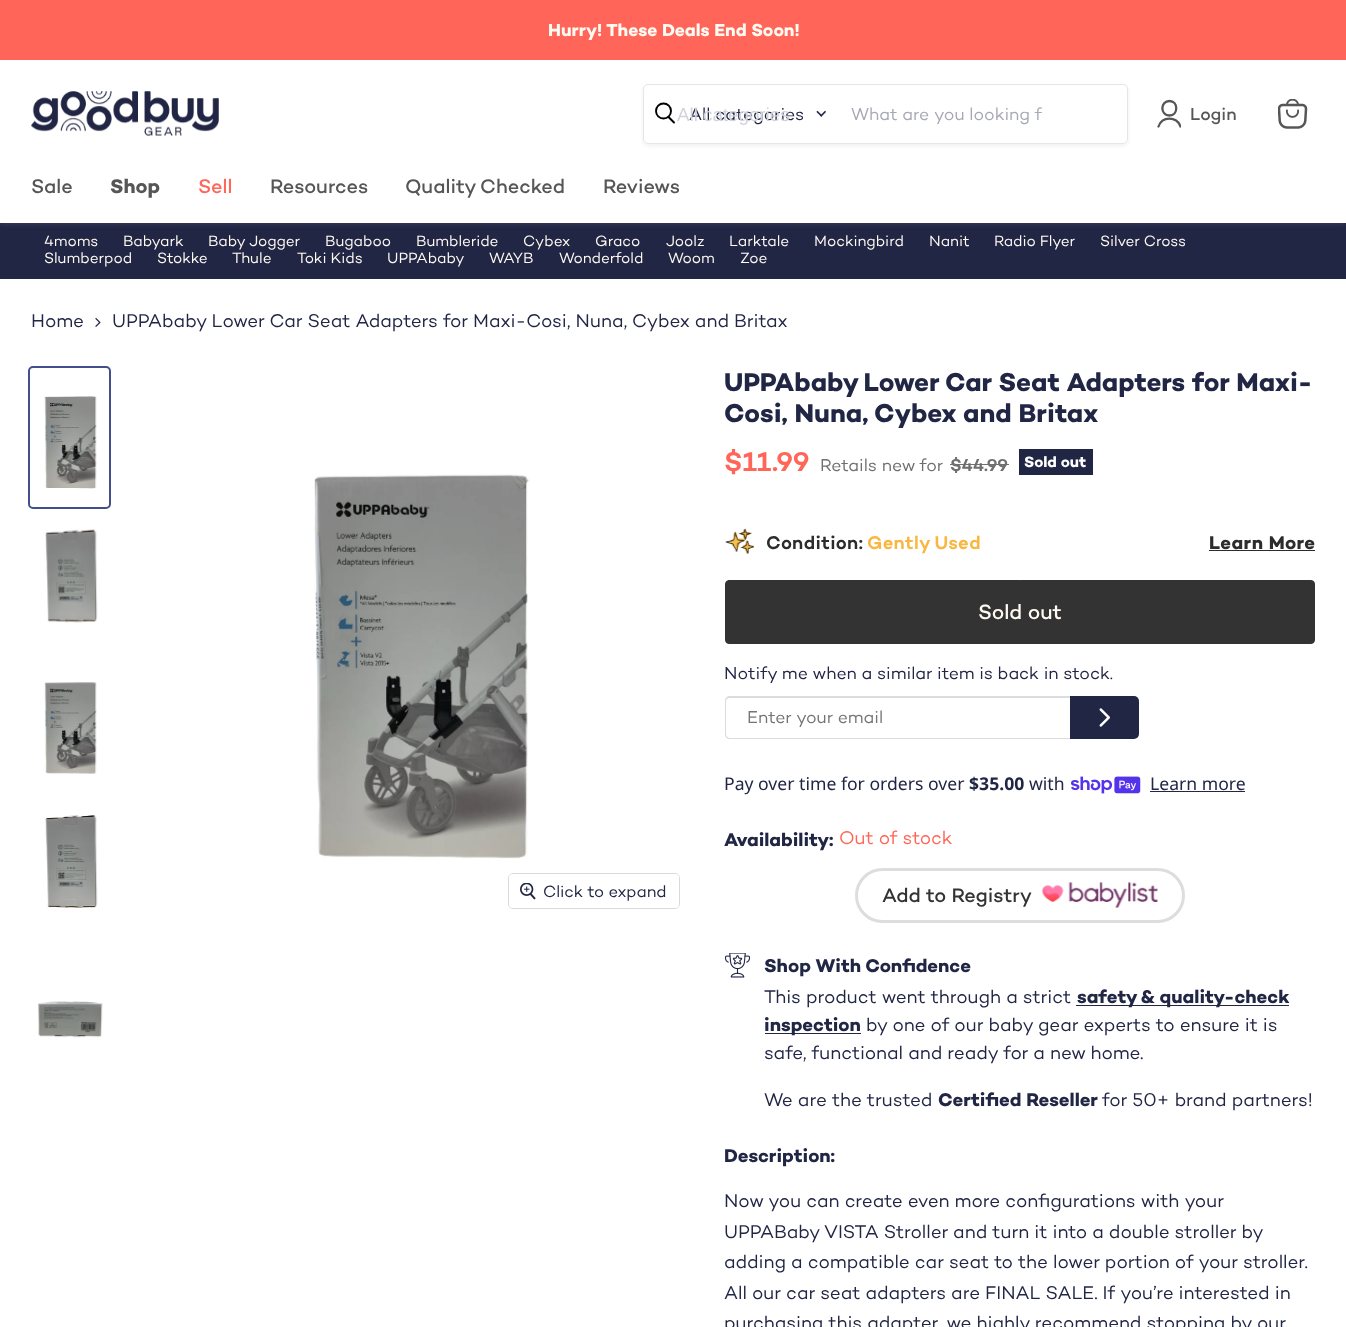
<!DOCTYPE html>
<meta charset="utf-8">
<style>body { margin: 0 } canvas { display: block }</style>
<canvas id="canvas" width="1346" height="1327"></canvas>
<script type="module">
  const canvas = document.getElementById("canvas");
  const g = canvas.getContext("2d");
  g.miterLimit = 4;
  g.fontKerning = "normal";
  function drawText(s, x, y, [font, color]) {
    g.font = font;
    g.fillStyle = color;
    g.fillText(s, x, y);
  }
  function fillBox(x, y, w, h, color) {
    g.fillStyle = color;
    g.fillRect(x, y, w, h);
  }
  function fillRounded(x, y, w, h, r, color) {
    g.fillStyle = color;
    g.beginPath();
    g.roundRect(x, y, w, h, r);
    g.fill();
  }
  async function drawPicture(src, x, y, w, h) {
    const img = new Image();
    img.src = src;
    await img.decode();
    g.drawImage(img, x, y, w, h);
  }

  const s1 = ["bold 17.6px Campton", "#FFFAF2"];
  const s2 = ["17.5px Campton", "#212645"];
  const s3 = ["18.75px Liberation Sans", "#D3D4DB"];
  const s4 = ["17.5px Campton", "#A6A8B5"];
  const s5 = ["500 17.6px Campton", "#565656"];
  const s6 = ["500 20px Campton", "#565656"];
  const s7 = ["bold 20px Campton", "#565656"];
  const s8 = ["500 20px Campton", "#FF6659"];
  const s9 = ["15.25px Campton", "#FFFAF2"];
  const s10 = ["18.75px Campton", "#212645"];
  const s11 = ["16.5px Campton", "#212645"];
  const s12 = ["bold 26.25px Campton", "#212645"];
  const s13 = ["600 27.5px Campton", "#FF6659"];
  const s14 = ["17.5px Campton", "#6F6F6F"];
  const s15 = ["600 17.5px Campton", "#6F6F6F"];
  const s16 = ["bold 15.25px Campton", "#FFFFFF"];
  const s17 = ["600 18.75px Campton", "#2C2C2C"];
  const s18 = ["600 18.75px Campton", "#F9B741"];
  const s19 = ["bold 18.75px Campton", "#2C2C2C"];
  const s20 = ["500 21px Campton", "#FFFAF2"];
  const s21 = ["17.5px Campton", "#757575"];
  const s22 = ["17.6px Noto Sans", "#212645"];
  const s23 = ["bold 17.6px Noto Sans", "#212645"];
  const s24 = ["bold 18.75px Campton", "#212645"];
  const s25 = ["18.75px Campton", "#FF6659"];
  const s26 = ["500 20px Campton", "#333333"];

  fillBox(0, 0, 1346, 1327, "#FFFFFF");
  fillBox(0, 223, 1346, 56, "#212645");
  g.fillStyle = "rgba(128, 128, 128, 0.25)";
  g.filter = "blur(2.5px)";
  g.beginPath();
  g.rect(0, 61, 1346, 163);
  g.fill();
  g.filter = "none";
  fillBox(0, 0, 1346, 60, "#FF6659");
  drawText("Hurry! These Deals End Soon!", 548, 36, s1);
  fillBox(0, 60, 1346, 163, "#FFFFFF");
  await drawPicture("pic1.png", 31, 91, 188, 46);
  g.save();
  g.beginPath();
  g.moveTo(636, 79);
  g.lineTo(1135, 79);
  g.lineTo(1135, 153);
  g.lineTo(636, 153);
  g.closePath();
  g.moveTo(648, 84);
  g.lineTo(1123, 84);
  g.bezierCurveTo(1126, 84, 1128, 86, 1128, 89);
  g.lineTo(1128, 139);
  g.bezierCurveTo(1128, 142, 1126, 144, 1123, 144);
  g.lineTo(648, 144);
  g.bezierCurveTo(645, 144, 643, 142, 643, 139);
  g.lineTo(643, 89);
  g.bezierCurveTo(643, 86, 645, 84, 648, 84);
  g.closePath();
  g.clip("evenodd");
  g.fillStyle = "rgba(128, 128, 128, 0.11)";
  g.filter = "blur(2px)";
  g.beginPath();
  g.roundRect(643, 86, 485, 60, 5);
  g.fill();
  g.filter = "none";
  g.restore();
  g.beginPath();
  g.roundRect(643.5, 84.5, 484, 59, 4.5);
  g.strokeStyle = "rgba(128, 128, 128, 0.2)";
  g.stroke();
  g.beginPath();
  g.moveTo(674, 122.5);
  g.lineTo(668.5, 117);
  g.strokeStyle = "#000000";
  g.lineWidth = 1.9;
  g.lineCap = "round";
  g.stroke();
  g.beginPath();
  g.arc(663.5, 111, 7.5, 0, Math.PI * 2);
  g.stroke();
  drawText("All categories", 689, 120, s2);
  drawText("All categories", 677, 121, s3);
  await drawPicture("pic2.png", 816, 110, 10, 7);
  drawText("What are you looking f", 851, 120, s4);
  g.beginPath();
  g.moveTo(1169.5, 115.5);
  g.bezierCurveTo(1178.5, 115.5, 1178.5, 101, 1169.5, 101);
  g.bezierCurveTo(1160, 101, 1160, 115.5, 1169.5, 115.5);
  g.closePath();
  g.strokeStyle = "#565656";
  g.lineWidth = 2.3;
  g.lineJoin = "round";
  g.stroke();
  g.save();
  g.beginPath();
  g.rect(1156, 99, 25, 30);
  g.clip();
  g.beginPath();
  g.moveTo(1180.5, 126.5);
  g.bezierCurveTo(1176.5, 116, 1162, 116, 1158.5, 126.5);
  g.stroke();
  g.restore();
  drawText("Login", 1190, 120, s5);
  await drawPicture("pic3.png", 1278, 99, 30, 30);
  drawText("Sale", 31, 193, s6);
  drawText("Shop", 110, 193, s7);
  drawText("Sell", 198, 193, s8);
  drawText("Resources", 270, 193, s6);
  drawText("Quality Checked", 405, 193, s6);
  drawText("Reviews", 603, 193, s6);
  drawText("4moms", 44, 246, s9);
  drawText("Babyark", 123, 246, s9);
  drawText("Baby Jogger", 208, 246, s9);
  drawText("Bugaboo", 325, 246, s9);
  drawText("Bumbleride", 416, 246, s9);
  drawText("Cybex", 523, 246, s9);
  drawText("Graco", 595, 246, s9);
  drawText("Joolz", 666, 246, s9);
  drawText("Larktale", 729, 246, s9);
  drawText("Mockingbird", 814, 246, s9);
  drawText("Nanit", 929, 246, s9);
  drawText("Radio Flyer", 994, 246, s9);
  drawText("Silver Cross", 1100, 246, s9);
  drawText("Slumberpod", 44, 263, s9);
  drawText("Stokke", 157, 263, s9);
  drawText("Thule", 232, 263, s9);
  drawText("Toki Kids", 297, 263, s9);
  drawText("UPPAbaby", 387, 263, s9);
  drawText("WAYB", 489, 263, s9);
  drawText("Wonderfold", 559, 263, s9);
  drawText("Woom", 668, 263, s9);
  drawText("Zoe", 740, 263, s9);
  drawText("Home", 31, 327, s10);
  await drawPicture("pic4.png", 95, 317, 6, 10);
  drawText("UPPAbaby Lower Car Seat Adapters for Maxi-Cosi, Nuna, Cybex and Britax", 112, 327, s10);
  g.beginPath();
  g.roundRect(29, 367, 81, 141, 4);
  g.strokeStyle = "#444E8D";
  g.lineWidth = 2;
  g.lineJoin = "miter";
  g.stroke();
  await drawPicture("pic5.png", 44, 396, 53, 93);
  await drawPicture("pic6.png", 45, 529, 53, 94);
  await drawPicture("pic7.png", 44, 682, 53, 92);
  await drawPicture("pic8.png", 45, 815, 53, 93);
  await drawPicture("pic9.png", 38, 1001, 65, 37);
  await drawPicture("pic10.png", 314, 474, 216, 385);
  g.beginPath();
  g.roundRect(508.5, 873.5, 171, 35, 4.5);
  g.strokeStyle = "#D9D9D9";
  g.lineWidth = 1;
  g.stroke();
  fillRounded(509, 874, 170, 34, 4, "rgba(255, 255, 255, 0.9)");
  await drawPicture("pic11.png", 520, 883, 16, 17);
  drawText("Click to expand", 543, 897, s11);
  drawText("UPPAbaby Lower Car Seat Adapters for Maxi-", 724, 391, s12);
  drawText("Cosi, Nuna, Cybex and Britax", 724, 422, s12);
  drawText("$11.99", 724, 471, s13);
  drawText("Retails new for", 820, 471, s14);
  drawText("$44.99", 950, 471, s15);
  fillBox(950, 464, 59, 1, "#6F6F6F");
  fillBox(1019, 449, 74, 26, "#212645");
  drawText("Sold out", 1024, 467, s16);
  await drawPicture("pic12.png", 725, 528, 29, 26);
  g.letterSpacing = "0.4px";
  drawText("Condition:", 766, 549, s17);
  drawText("Gently Used", 867, 549, s18);
  drawText("Learn More", 1209, 549, s19);
  fillBox(1209, 550, 106, 1, "#2C2C2C");
  g.fillStyle = "#333333";
  g.beginPath();
  g.roundRect(725.5, 580.5, 589, 63, 3.5);
  g.fill();
  g.strokeStyle = "#333333";
  g.stroke();
  g.letterSpacing = "0px";
  drawText("Sold out", 978, 619, s20);
  drawText("Notify me when a similar item is back in stock.", 724, 679, s2);
  g.fillStyle = "#DCDCDC";
  g.beginPath();
  g.moveTo(730, 696);
  g.lineTo(1070, 696);
  g.lineTo(1070, 739);
  g.lineTo(730, 739);
  g.bezierCurveTo(727, 739, 725, 737, 725, 734);
  g.lineTo(725, 701);
  g.bezierCurveTo(725, 698, 727, 696, 730, 696);
  g.closePath();
  g.moveTo(730, 698);
  g.lineTo(1070, 698);
  g.lineTo(1070, 738);
  g.lineTo(730, 738);
  g.bezierCurveTo(728, 738, 726, 736, 726, 734);
  g.lineTo(726, 701);
  g.bezierCurveTo(726, 699, 728, 698, 730, 698);
  g.closePath();
  g.fill("evenodd");
  drawText("Enter your email", 747, 723, s21);
  g.fillStyle = "#212645";
  g.beginPath();
  g.roundRect(1070, 696, 69, 43, [0, 5, 5, 0]);
  g.fill();
  await drawPicture("pic13.png", 1099, 708, 11, 19);
  drawText("Pay over time for orders over", 724, 790, s22);
  drawText("$35.00", 969, 790, s23);
  drawText("with", 1029, 790, s22);
  await drawPicture("pic14.png", 1071, 776, 70, 18);
  drawText("Learn more", 1150, 790, s22);
  fillBox(1150, 791, 95, 1, "#212645");
  drawText("Availability:", 724, 846, s24);
  drawText("Out of stock", 839, 844, s25);
  g.beginPath();
  g.roundRect(856.5, 869.5, 327, 52, 26);
  g.strokeStyle = "#DDDDDD";
  g.lineWidth = 3;
  g.stroke();
  drawText("Add to Registry", 882, 902, s26);
  await drawPicture("pic15.png", 1042, 882, 116, 26);
  await drawPicture("pic16.png", 725, 953, 25, 25);
  drawText("Shop With Confidence", 764, 972, s24);
  drawText("This product went through a strict", 764, 1003, s10);
  fillBox(1076, 1005, 213, 1, "#212645");
  drawText("safety & quality-check", 1077, 1003, s24);
  fillBox(765, 1033, 96, 1, "#212645");
  drawText("inspection", 764, 1031, s24);
  drawText("by one of our baby gear experts to ensure it is", 866, 1031, s10);
  drawText("safe, functional and ready for a new home.", 764, 1059, s10);
  drawText("We are the trusted", 764, 1106, s10);
  drawText("Certified Reseller", 938, 1106, s24);
  drawText("for 50+ brand partners!", 1102, 1106, s10);
  drawText("Description:", 724, 1162, s24);
  drawText("Now you can create even more configurations with your", 724, 1207, s10);
  drawText("UPPABaby VISTA Stroller and turn it into a double stroller by", 724, 1238, s10);
  drawText("adding a compatible car seat to the lower portion of your stroller.", 724, 1268, s10);
  drawText("All our car seat adapters are FINAL SALE. If you’re interested in", 724, 1299, s10);
  drawText("purchasing this adapter, we highly recommend stopping by our", 724, 1329, s10);
</script>
